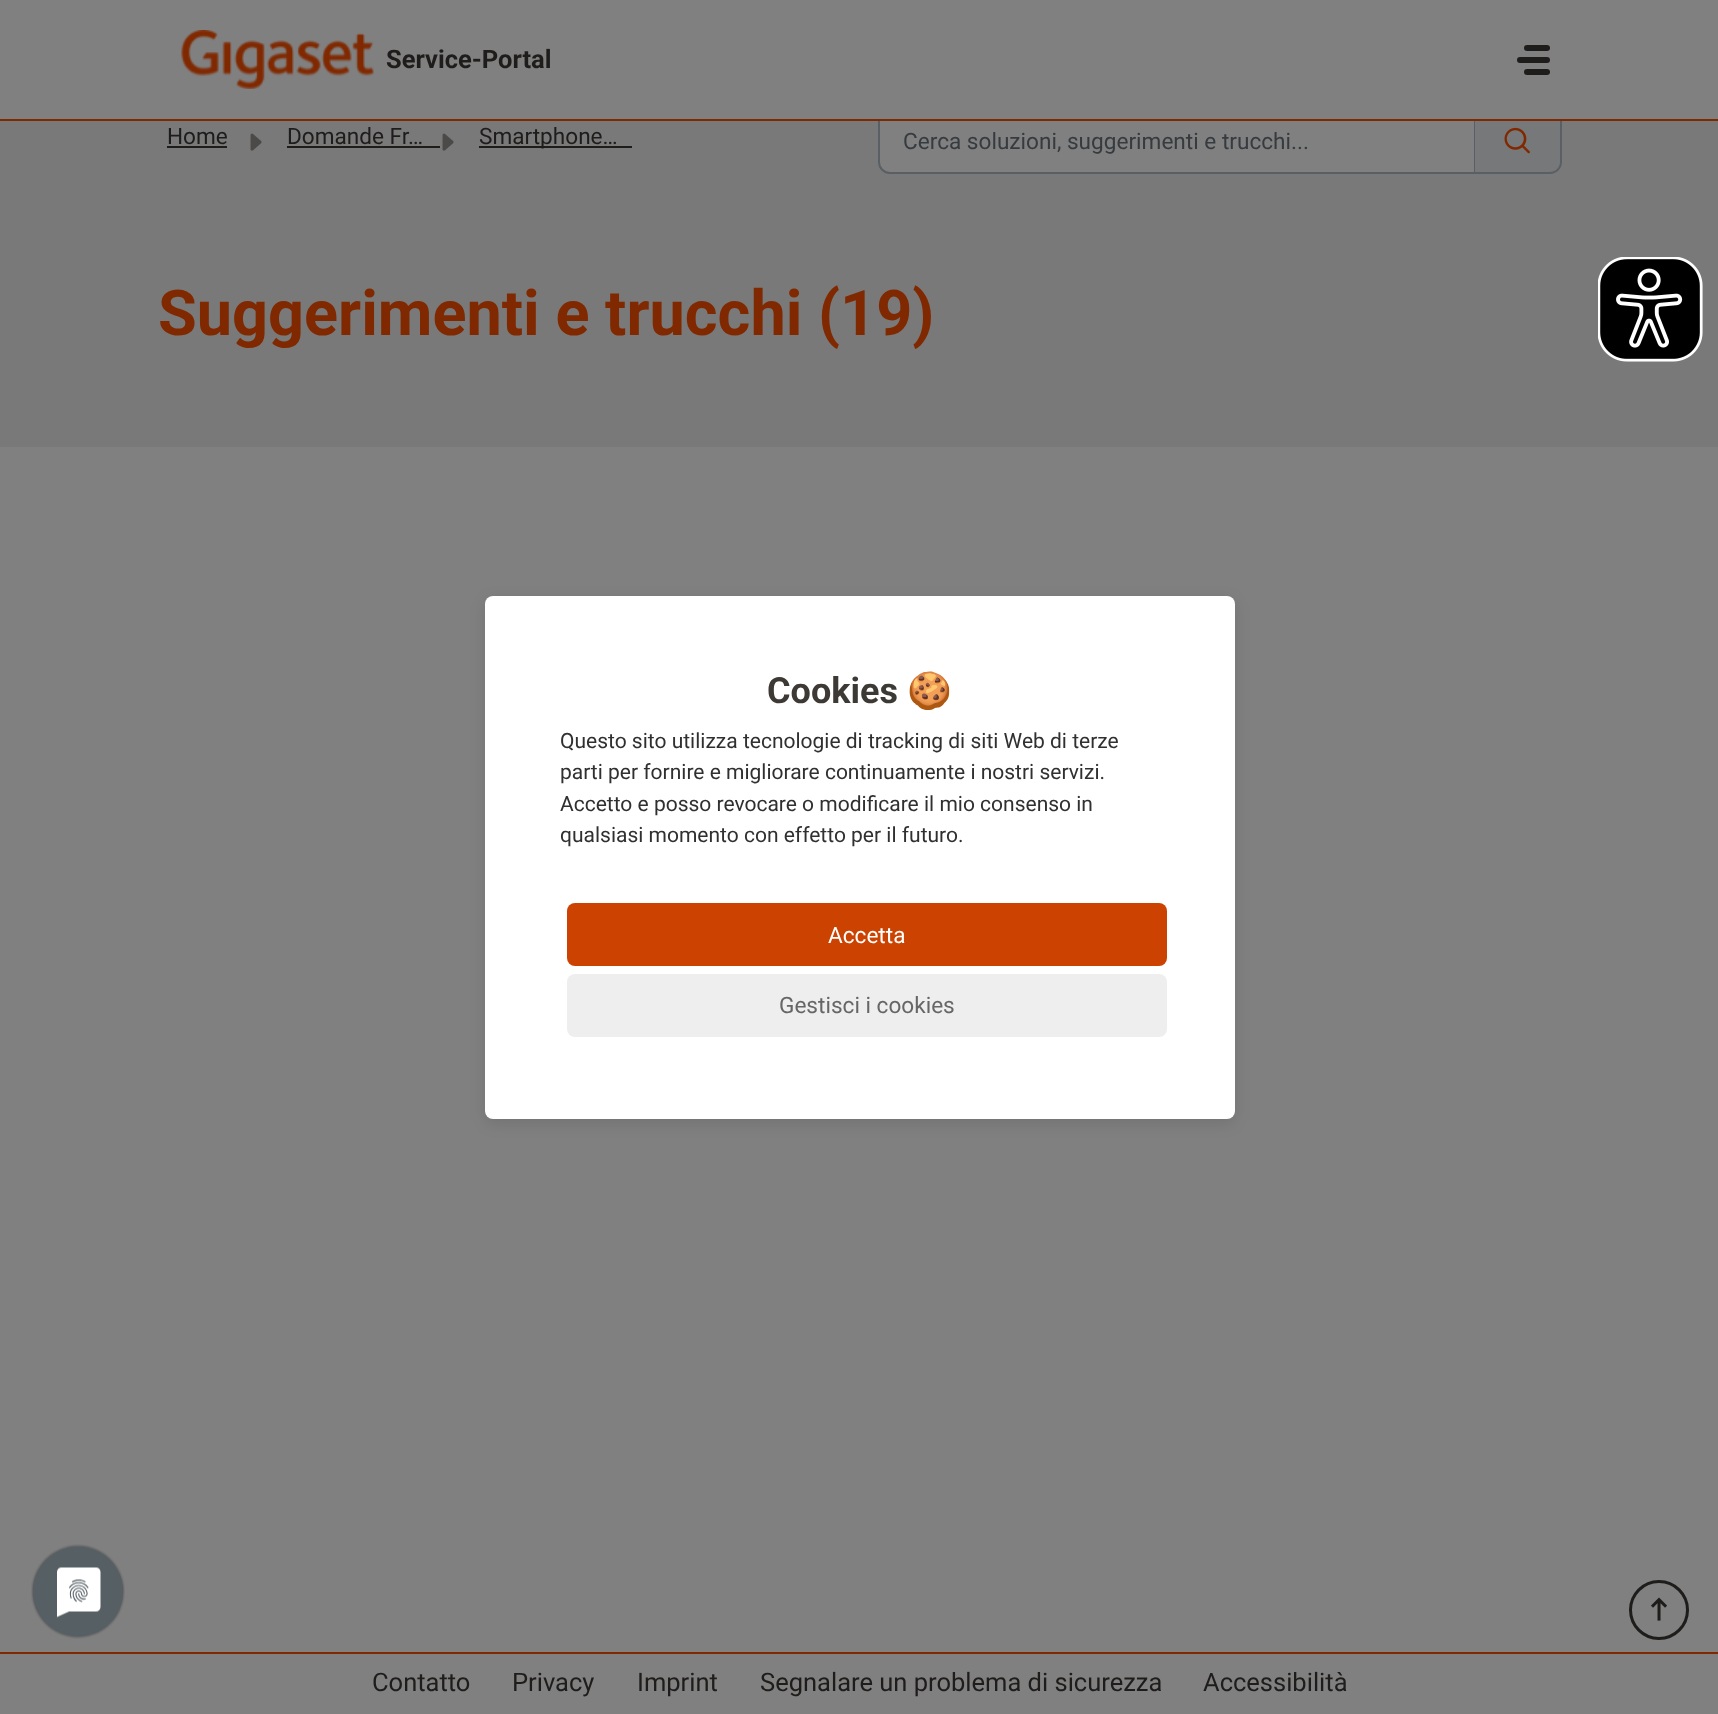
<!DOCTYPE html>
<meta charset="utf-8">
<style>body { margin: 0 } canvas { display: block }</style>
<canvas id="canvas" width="1718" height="1714"></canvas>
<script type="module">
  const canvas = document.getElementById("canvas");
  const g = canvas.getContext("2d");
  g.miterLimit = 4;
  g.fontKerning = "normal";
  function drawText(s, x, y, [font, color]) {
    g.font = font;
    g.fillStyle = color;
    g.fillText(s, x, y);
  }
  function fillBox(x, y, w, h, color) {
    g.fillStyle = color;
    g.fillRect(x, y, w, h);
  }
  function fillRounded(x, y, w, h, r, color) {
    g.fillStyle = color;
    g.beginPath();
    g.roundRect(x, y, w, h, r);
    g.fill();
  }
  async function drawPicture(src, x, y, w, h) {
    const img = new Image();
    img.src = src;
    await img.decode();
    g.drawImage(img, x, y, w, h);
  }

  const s1 = ["bold 25.5px Roboto", "#1F1D1B"];
  const s2 = ["22.6px Roboto", "#1F1D1B"];
  const s3 = ["22.6px Roboto", "#363B3F"];
  const s4 = ["bold 63px Roboto", "#802900"];
  const s5 = ["bold 36px Roboto", "#3D3935"];
  const s6 = ["bold 36px Noto Color Emoji", "#3D3935"];
  const s7 = ["21px Roboto", "#303030"];
  const s8 = ["22.6px Roboto", "#FFFFFF"];
  const s9 = ["22.6px Roboto", "#666666"];
  const s10 = ["25.5px Roboto", "#1F1D1B"];

  fillBox(0, 0, 1718, 1714, "#808080");
  fillBox(0, 121, 1718, 326, "#797979");
  g.fillStyle = "#808080";
  g.beginPath();
  g.roundRect(879, 109, 596, 64, [11, 0, 0, 11]);
  g.fill();
  g.strokeStyle = "#595F64";
  g.lineWidth = 2;
  g.stroke();
  g.fillStyle = "#76787A";
  g.beginPath();
  g.roundRect(1475, 108, 87, 66, [0, 12, 12, 0]);
  g.fill();
  g.fillStyle = "#595F64";
  g.beginPath();
  g.moveTo(1474, 108);
  g.lineTo(1550, 108);
  g.bezierCurveTo(1556, 108, 1562, 113, 1562, 120);
  g.lineTo(1562, 162);
  g.bezierCurveTo(1562, 169, 1556, 174, 1550, 174);
  g.lineTo(1474, 174);
  g.closePath();
  g.moveTo(1474, 110);
  g.lineTo(1550, 110);
  g.bezierCurveTo(1555, 110, 1560, 114, 1560, 120);
  g.lineTo(1560, 162);
  g.bezierCurveTo(1560, 168, 1555, 172, 1550, 172);
  g.lineTo(1474, 172);
  g.closePath();
  g.fill("evenodd");
  fillBox(878, 108, 684, 11, "#808080");
  fillBox(0, 119, 1718, 2, "#802900");
  await drawPicture("pic1.png", 181, 30, 193, 59);
  drawText("Service-Portal", 386, 68, s1);
  fillRounded(1524, 45, 26, 6, 3, "#1F1D1B");
  fillRounded(1517, 57, 33, 6, 3, "#1F1D1B");
  fillRounded(1524, 69, 26, 6, 3, "#1F1D1B");
  drawText("Home", 167, 144, s2);
  fillBox(167, 146, 60, 2, "#1F1D1B");
  await drawPicture("pic2.png", 250, 133, 12, 18);
  drawText("Domande Fr…", 287, 144, s2);
  fillBox(287, 146, 153, 2, "#1F1D1B");
  await drawPicture("pic2.png", 442, 133, 12, 18);
  fillBox(479, 146, 153, 2, "#1F1D1B");
  drawText("Smartphone…", 479, 144, s2);
  drawText("Cerca soluzioni, suggerimenti e trucchi...", 903, 149, s3);
  await drawPicture("pic3.png", 1504, 127, 26, 27);
  drawText("Suggerimenti e trucchi (19)", 158, 335, s4);
  await drawPicture("pic4.png", 1598, 257, 105, 105);
  g.fillStyle = "rgba(0, 0, 0, 0.1)";
  g.filter = "blur(7.5px)";
  g.beginPath();
  g.roundRect(485, 600, 750, 524, 8);
  g.fill();
  g.filter = "none";
  g.save();
  g.beginPath();
  g.roundRect(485, 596, 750, 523, 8);
  g.clip();
  g.fillStyle = "rgba(0, 0, 0, 0.3)";
  g.filter = "blur(27px)";
  g.beginPath();
  g.rect(485, 605, 750, 523);
  g.fill();
  g.filter = "none";
  g.restore();
  fillRounded(485, 596, 750, 523, 8, "#FFFFFF");
  drawText("Cookies", 767, 703, s5);
  g.save();
  g.beginPath();
  g.rect(560, 671, 600, 210);
  g.clip();
  drawText("🍪", 907, 703, s6);
  g.restore();
  drawText("Questo sito utilizza tecnologie di tracking di siti Web di terze", 560, 748, s7);
  drawText("parti per fornire e migliorare continuamente i nostri servizi.", 560, 779, s7);
  drawText("Accetto e posso revocare o modificare il mio consenso in", 560, 811, s7);
  drawText("qualsiasi momento con effetto per il futuro.", 560, 842, s7);
  fillRounded(567, 903, 600, 63, 8, "#CC4200");
  drawText("Accetta", 828, 943, s8);
  fillRounded(567, 974, 600, 63, 8, "#EEEEEE");
  drawText("Gestisci i cookies", 779, 1013, s9);
  await drawPicture("pic5.png", 31, 1544, 94, 95);
  g.beginPath();
  g.arc(1659, 1610, 28.5, 0, Math.PI * 2);
  g.strokeStyle = "#1F1D1B";
  g.lineWidth = 3;
  g.stroke();
  await drawPicture("pic6.png", 1651, 1597, 16, 24);
  fillBox(0, 1652, 1718, 2, "#802900");
  drawText("Contatto", 372, 1691, s10);
  drawText("Privacy", 512, 1691, s10);
  drawText("Imprint", 637, 1691, s10);
  drawText("Segnalare un problema di sicurezza", 760, 1691, s10);
  drawText("Accessibilità", 1203, 1691, s10);
</script>
